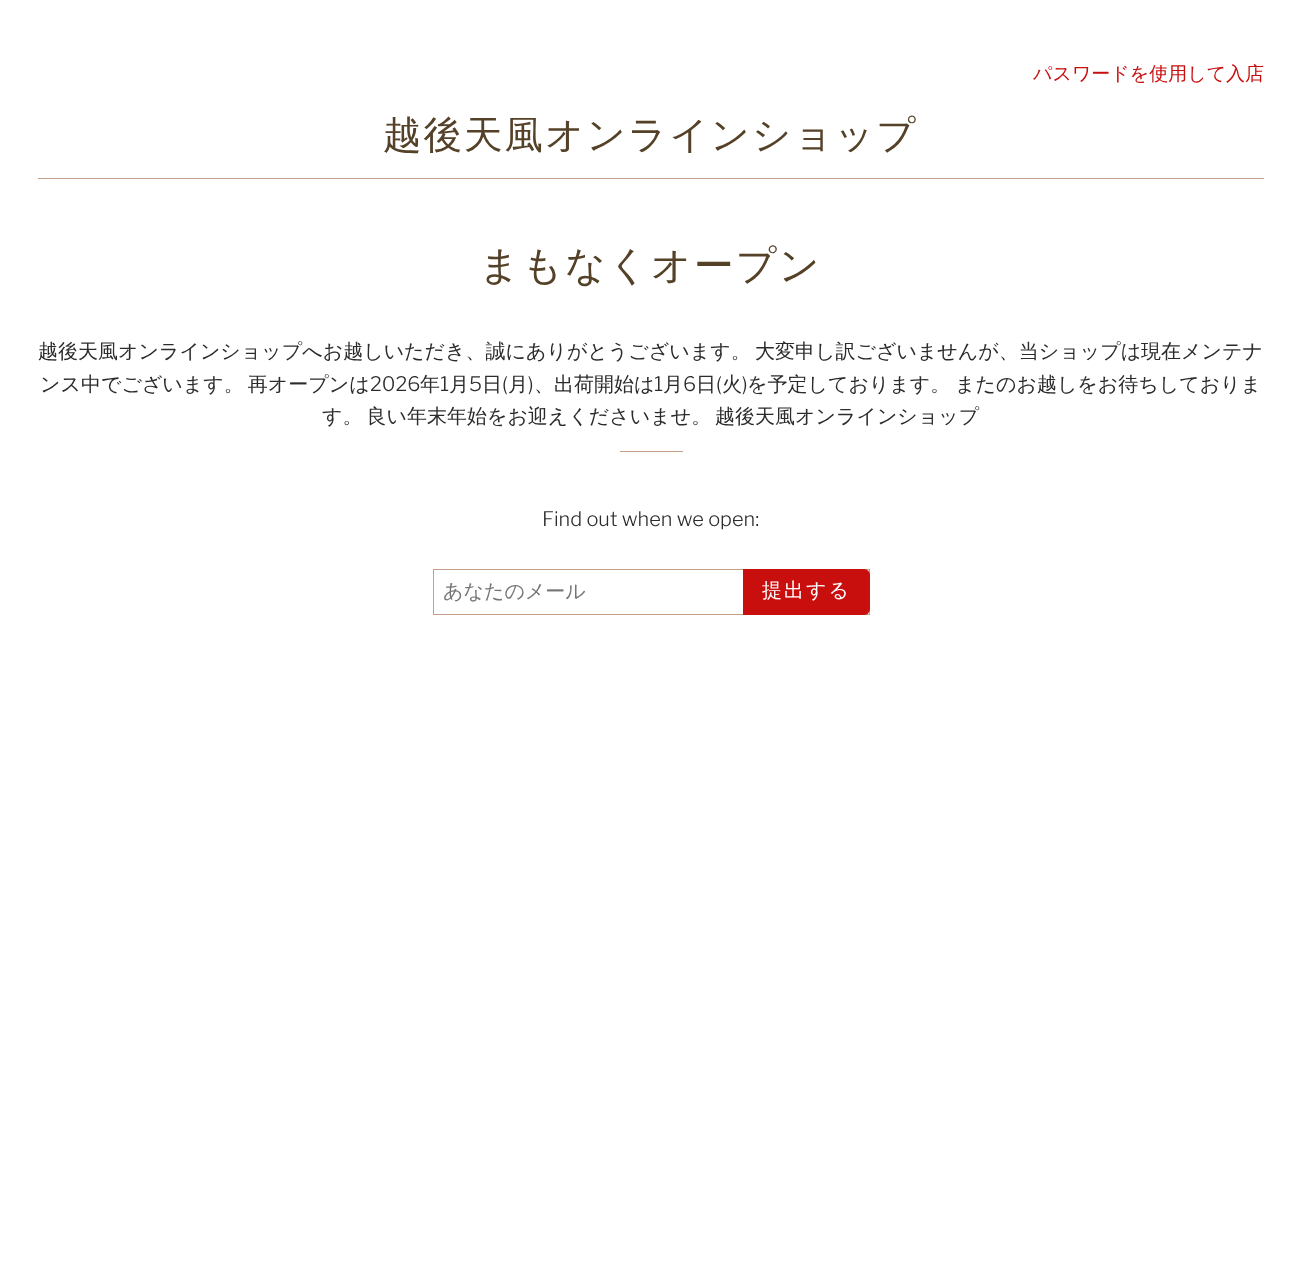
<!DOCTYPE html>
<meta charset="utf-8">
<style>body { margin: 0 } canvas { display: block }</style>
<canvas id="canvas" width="1301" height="1274"></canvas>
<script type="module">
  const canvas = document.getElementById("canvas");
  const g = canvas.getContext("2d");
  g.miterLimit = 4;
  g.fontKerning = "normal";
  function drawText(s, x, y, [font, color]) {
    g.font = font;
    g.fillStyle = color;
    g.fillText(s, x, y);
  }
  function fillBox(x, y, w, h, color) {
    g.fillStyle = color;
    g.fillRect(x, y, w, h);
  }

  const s1 = ["500 19px WenQuanYi Zen Hei", "#C90E0E"];
  const s2 = ["500 38.5px WenQuanYi Zen Hei", "#544128"];
  const s3 = ["500 40px WenQuanYi Zen Hei", "#544128"];
  const s4 = ["500 20px WenQuanYi Zen Hei", "#2A2B2A"];
  const s5 = ["300 20px Libre Franklin", "#2A2B2A"];
  const s6 = ["500 20px WenQuanYi Zen Hei", "#757575"];
  const s7 = ["500 20px WenQuanYi Zen Hei", "#FFFFFF"];

  fillBox(0, 0, 1301, 1274, "#FFFFFF");
  drawText("パスワードを使用して入店", 1033, 80, s1);
  g.letterSpacing = "2px";
  drawText("越後天風オンラインショップ", 383, 148, s2);
  fillBox(38, 178, 1226, 1, "#C69F89");
  drawText("まもなくオープン", 479, 279, s3);
  g.letterSpacing = "0px";
  drawText("越後天風オンラインショップへお越しいただき、誠にありがとうございます。", 38, 358, s4);
  drawText("大変申し訳ございませんが、当ショップは現在メンテナ", 755, 358, s4);
  g.wordSpacing = "-2px";
  drawText("ンス中でございます。 再オープンは", 40, 391, s4);
  g.wordSpacing = "0px";
  drawText("2026", 370, 391, s5);
  drawText("年", 420, 391, s4);
  drawText("1", 440, 391, s5);
  drawText("月", 449, 391, s4);
  drawText("5", 469, 391, s5);
  drawText("日", 482, 391, s4);
  drawText("(", 502, 391, s5);
  drawText("月", 508, 391, s4);
  drawText(")", 528, 391, s5);
  drawText("、出荷開始は", 534, 391, s4);
  drawText("1", 654, 391, s5);
  drawText("月", 663, 391, s4);
  drawText("6", 683, 391, s5);
  drawText("日", 696, 391, s4);
  drawText("(", 716, 391, s5);
  drawText("火", 722, 391, s4);
  drawText(")", 742, 391, s5);
  drawText("を予定しております。", 747, 391, s4);
  drawText("またのお越しをお待ちしておりま", 955, 391, s4);
  g.wordSpacing = "-2px";
  drawText("す。 良い年末年始をお迎えくださいませ。", 322, 423, s4);
  g.wordSpacing = "0px";
  drawText("越後天風オンラインショップ", 715, 423, s4);
  fillBox(620, 451, 63, 1, "#C69F89");
  drawText("Find out when we open:", 542, 526, s5);
  g.strokeStyle = "#C69F89";
  g.strokeRect(433.5, 569.5, 436, 45);
  drawText("あなたのメール", 443, 598, s6);
  g.fillStyle = "#C90E0E";
  g.beginPath();
  g.roundRect(743, 569, 127, 46, [0, 6, 6, 0]);
  g.fill();
  g.letterSpacing = "2px";
  drawText("提出する", 762, 597, s7);
</script>
